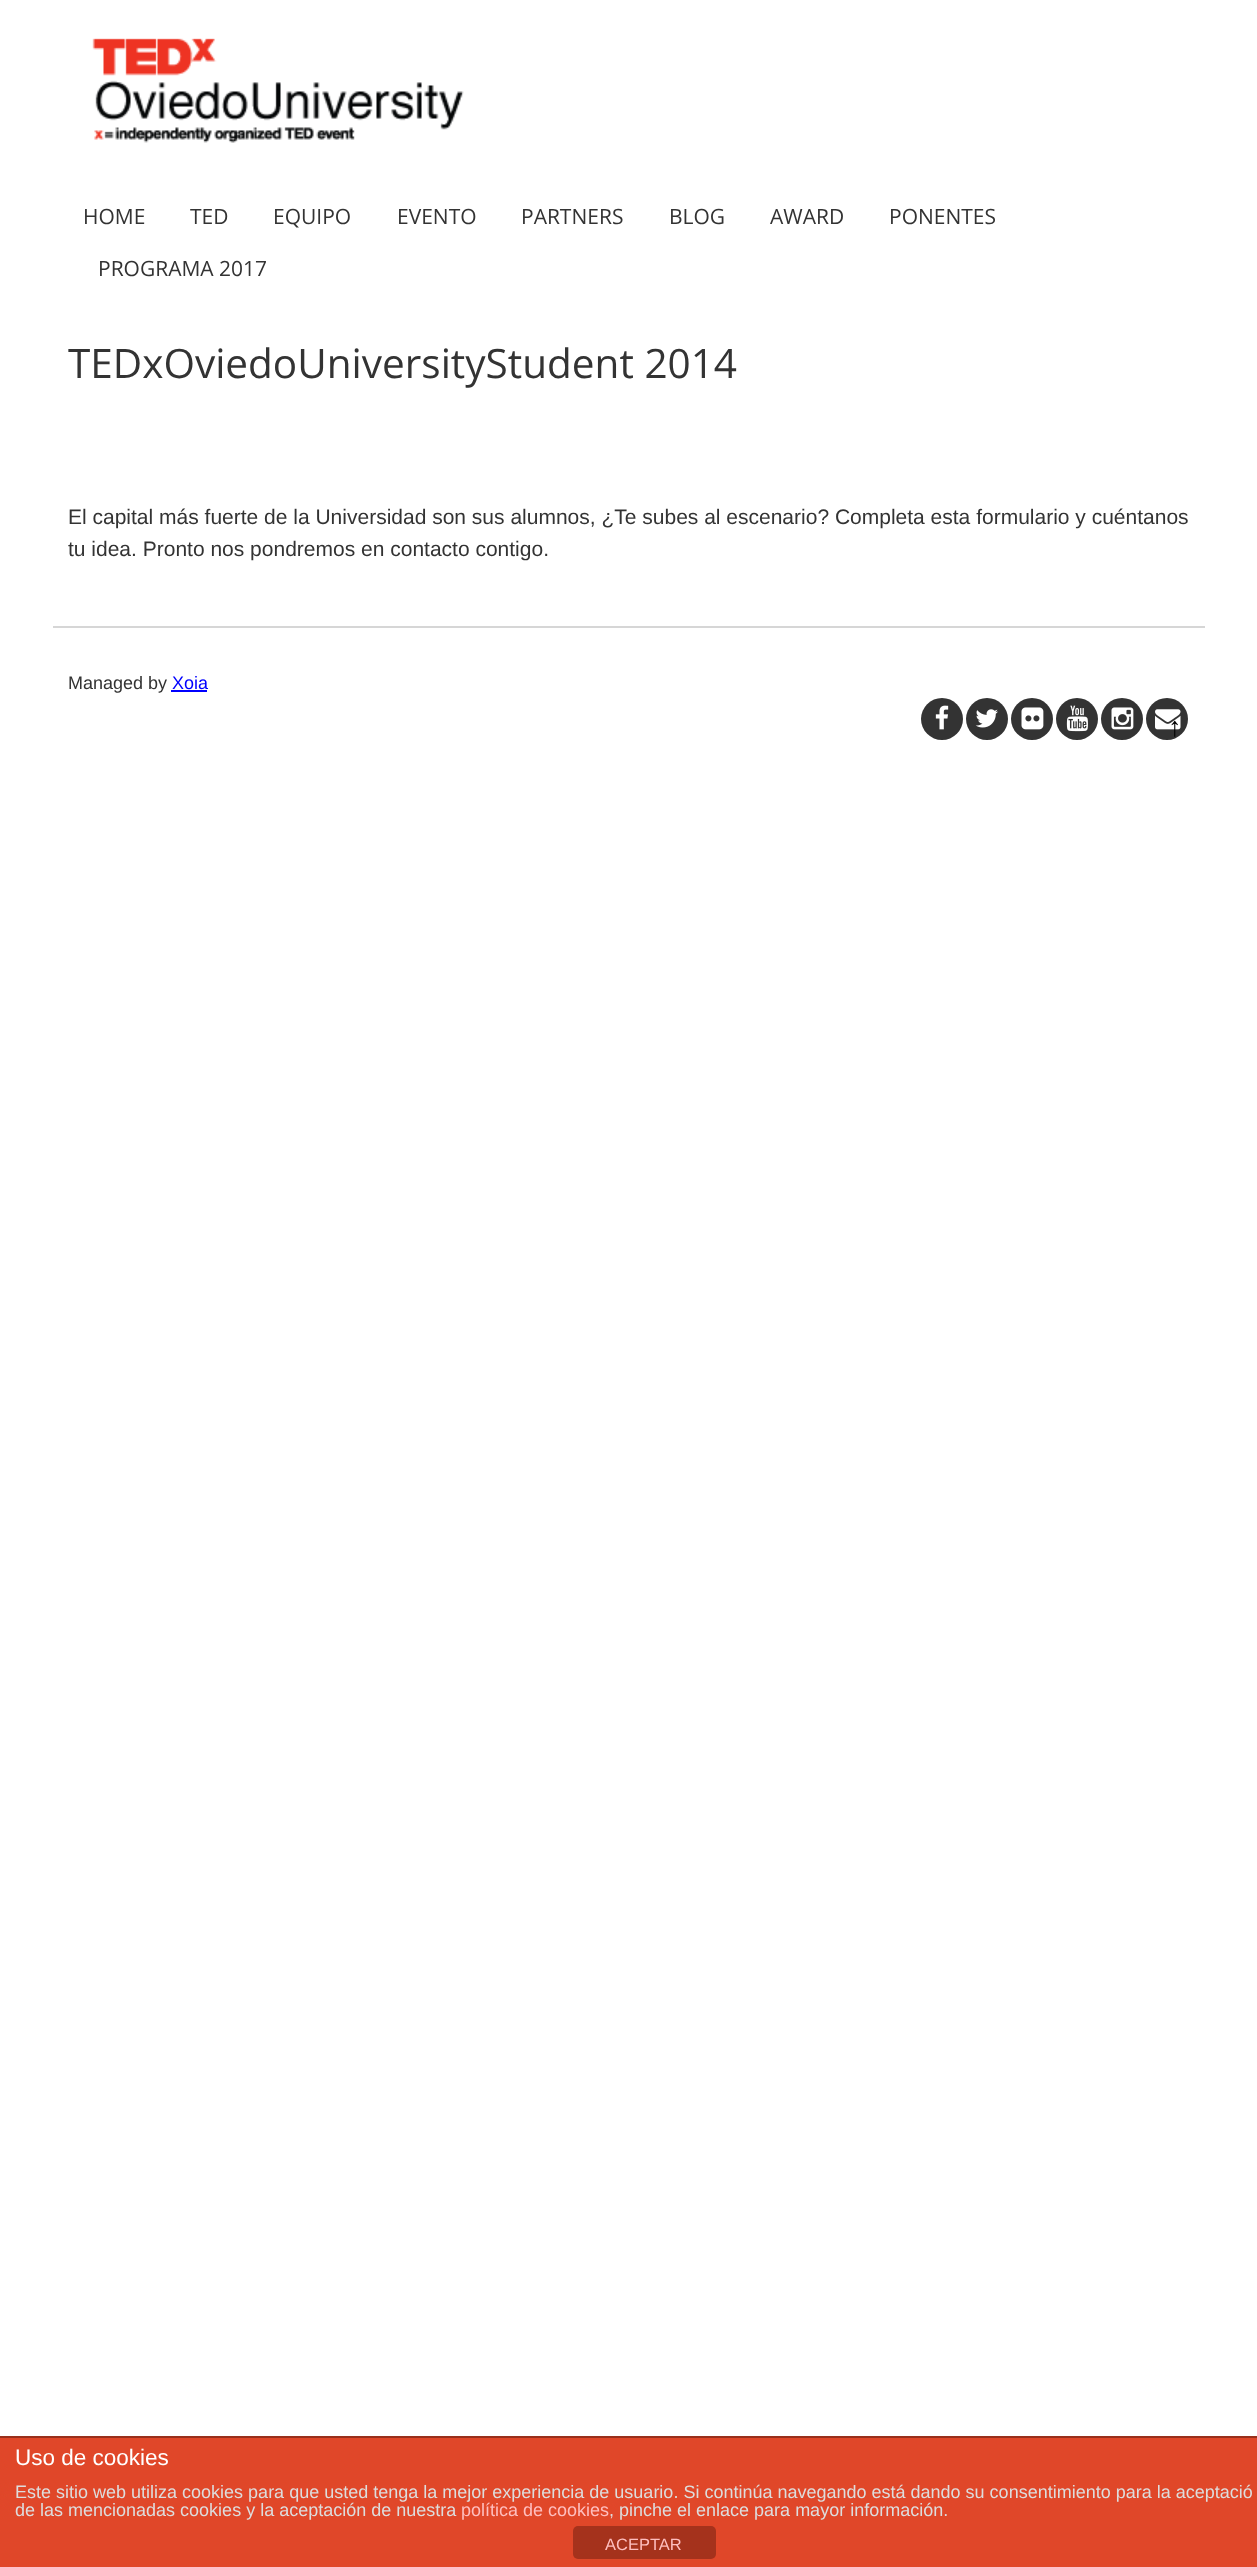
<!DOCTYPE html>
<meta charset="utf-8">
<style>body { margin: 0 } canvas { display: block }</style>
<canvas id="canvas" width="1257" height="2567"></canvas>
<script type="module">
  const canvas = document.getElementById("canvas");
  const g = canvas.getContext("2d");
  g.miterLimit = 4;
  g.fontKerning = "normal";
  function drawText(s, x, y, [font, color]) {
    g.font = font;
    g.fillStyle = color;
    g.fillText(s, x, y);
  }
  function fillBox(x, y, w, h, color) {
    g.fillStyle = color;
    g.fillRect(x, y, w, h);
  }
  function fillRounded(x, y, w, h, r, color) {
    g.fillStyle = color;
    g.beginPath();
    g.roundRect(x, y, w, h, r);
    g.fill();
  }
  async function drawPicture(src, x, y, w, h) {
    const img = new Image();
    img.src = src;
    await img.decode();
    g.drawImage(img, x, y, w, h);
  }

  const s1 = ["21px Open Sans", "#333333"];
  const s2 = ["40.5px Open Sans", "#333333"];
  const s3 = ["21px Liberation Sans", "#333333"];
  const s4 = ["18px Liberation Sans", "#333333"];
  const s5 = ["18px Liberation Sans", "#0000FF"];
  const s6 = ["27px Liberation Sans", "#010101"];
  const s7 = ["22.5px Liberation Sans", "#FFFFFF"];
  const s8 = ["18px Liberation Sans", "#DDDDDD"];
  const s9 = ["18px Liberation Sans", "#FEBEBE"];
  const s10 = ["16.5px Liberation Sans", "#FEBEBE"];

  fillBox(0, 0, 1257, 2567, "#FFFFFF");
  await drawPicture("pic1.png", 92, 38, 372, 105);
  drawText("HOME", 83, 224, s1);
  drawText("TED", 190, 224, s1);
  drawText("EQUIPO", 273, 224, s1);
  drawText("EVENTO", 397, 224, s1);
  drawText("PARTNERS", 521, 224, s1);
  drawText("BLOG", 669, 224, s1);
  drawText("AWARD", 770, 224, s1);
  drawText("PONENTES", 889, 224, s1);
  drawText("PROGRAMA 2017", 98, 276, s1);
  drawText("TEDxOviedoUniversityStudent 2014", 68, 378, s2);
  drawText("El capital más fuerte de la Universidad son sus alumnos, ¿Te subes al escenario? Completa esta formulario y cuéntanos", 68, 524, s3);
  drawText("tu idea. Pronto nos pondremos en contacto contigo.", 68, 556, s3);
  fillBox(53, 626, 1152, 2, "#D6D6D6");
  drawText("Managed by", 68, 689, s4);
  drawText("Xoia", 172, 689, s5);
  fillBox(171, 690, 36, 2, "#0000FF");
  g.fillStyle = "#333333";
  g.beginPath();
  g.arc(942, 719, 21, 0, Math.PI * 2);
  g.fill();
  await drawPicture("pic2.png", 935, 705, 14, 25);
  g.beginPath();
  g.arc(987, 719, 21, 0, Math.PI * 2);
  g.fill();
  await drawPicture("pic3.png", 975, 709, 23, 19);
  g.beginPath();
  g.arc(1032, 719, 21, 0, Math.PI * 2);
  g.fill();
  await drawPicture("pic4.png", 1021, 707, 23, 23);
  g.beginPath();
  g.arc(1077, 719, 21, 0, Math.PI * 2);
  g.fill();
  await drawPicture("pic5.png", 1066, 705, 22, 27);
  g.beginPath();
  g.arc(1122, 719, 21, 0, Math.PI * 2);
  g.fill();
  await drawPicture("pic6.png", 1111, 707, 23, 23);
  g.beginPath();
  g.arc(1167, 719, 21, 0, Math.PI * 2);
  g.fill();
  await drawPicture("pic7.png", 1155, 709, 26, 21);
  drawText("↑", 1168, 736, s6);
  fillBox(0, 2438, 1257, 129, "#E04729");
  fillBox(0, 2436, 1257, 2, "#99301B");
  drawText("Uso de cookies", 15, 2465, s7);
  drawText("Este sitio web utiliza cookies para que usted tenga la mejor experiencia de usuario. Si continúa navegando está dando su consentimiento para la aceptació", 15, 2498, s8);
  drawText("de las mencionadas cookies y la aceptación de nuestra", 15, 2516, s8);
  drawText("política de cookies", 461, 2516, s9);
  drawText(", pinche el enlace para mayor información.", 609, 2516, s8);
  fillRounded(573, 2526, 143, 33, 5, "#A5321C");
  drawText("ACEPTAR", 605, 2550, s10);
</script>
